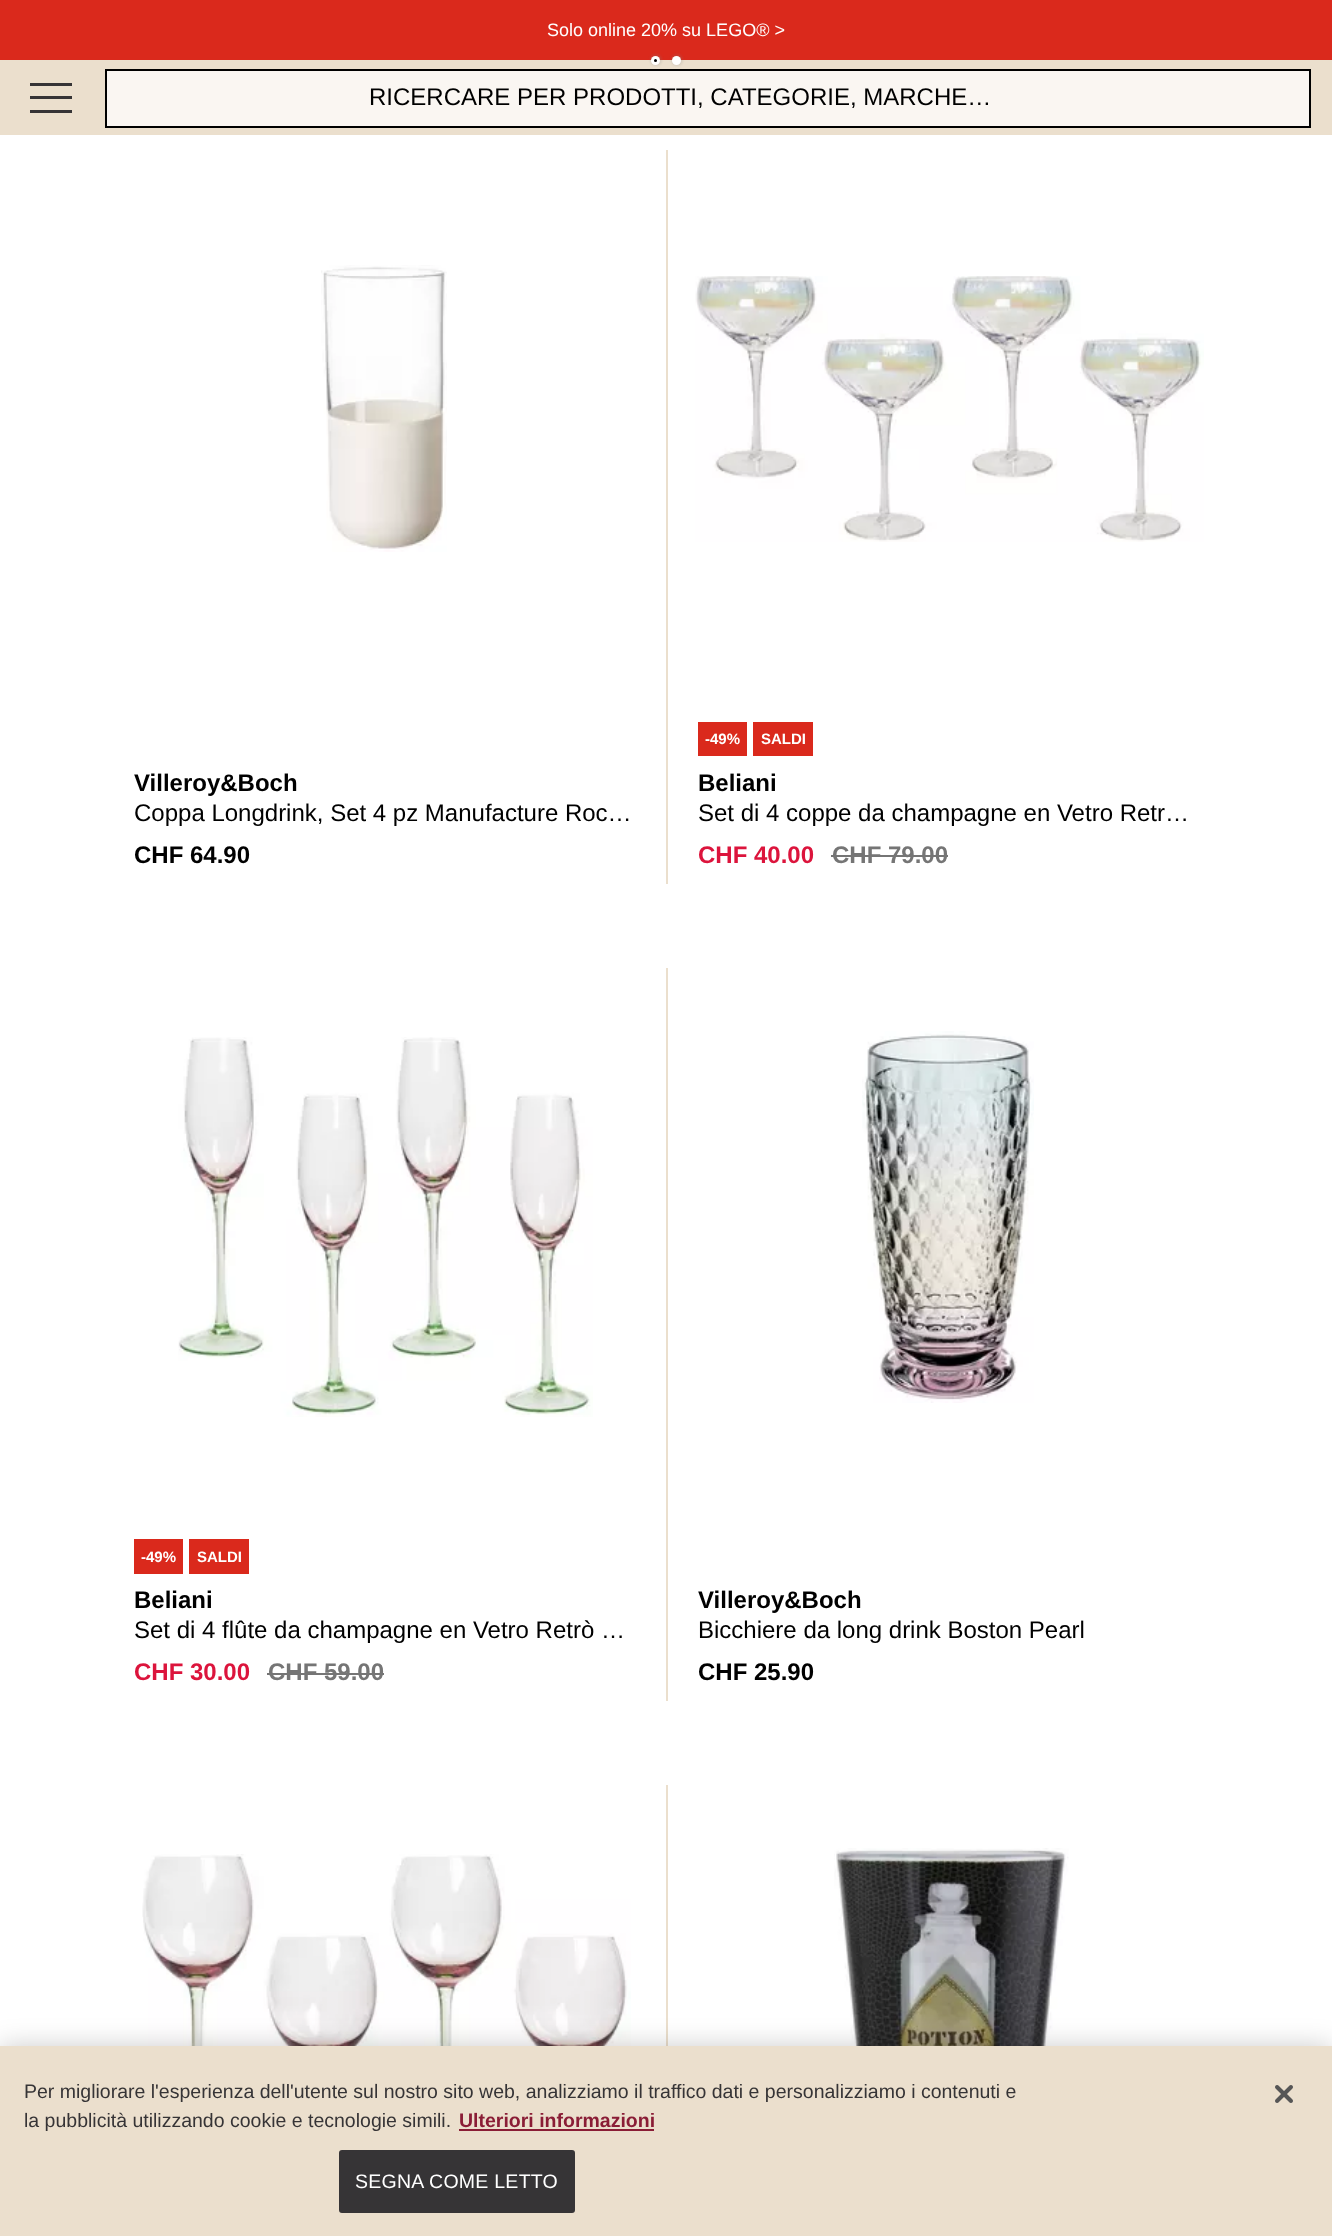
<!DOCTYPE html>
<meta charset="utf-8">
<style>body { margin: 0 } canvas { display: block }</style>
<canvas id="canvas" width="1332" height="2236"></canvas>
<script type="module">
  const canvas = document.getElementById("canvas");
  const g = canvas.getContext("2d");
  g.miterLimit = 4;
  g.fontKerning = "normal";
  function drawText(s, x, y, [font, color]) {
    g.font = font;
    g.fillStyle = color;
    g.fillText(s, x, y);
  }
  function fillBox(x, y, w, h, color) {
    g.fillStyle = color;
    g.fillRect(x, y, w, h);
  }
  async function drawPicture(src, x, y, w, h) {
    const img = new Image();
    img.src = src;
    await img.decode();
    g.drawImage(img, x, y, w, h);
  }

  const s1 = ["18px Liberation Sans", "#FFFFFF"];
  const s2 = ["24px Liberation Sans", "#000000"];
  const s3 = ["bold 24px Liberation Sans", "#000000"];
  const s4 = ["bold 15px Liberation Sans", "#FFFFFF"];
  const s5 = ["bold 24px Liberation Sans", "#DC143C"];
  const s6 = ["bold 24px Liberation Sans", "#757575"];
  const s7 = ["19.5px Liberation Sans", "#363436"];
  const s8 = ["bold 19.5px Liberation Sans", "#8A1D36"];
  const s9 = ["19.5px Liberation Sans", "#FFFFFF"];

  fillBox(0, 0, 1332, 2236, "#FFFFFF");
  fillBox(0, 60, 1332, 75, "#EBDFCD");
  fillBox(0, 0, 1332, 60, "#DA291C");
  drawText("Solo online 20% su LEGO® >", 547, 36, s1);
  g.fillStyle = "#FAF6F2";
  g.beginPath();
  g.rect(106, 70, 1204, 57);
  g.fill();
  g.strokeStyle = "#000000";
  g.lineWidth = 2;
  g.stroke();
  g.fillStyle = "rgba(128, 128, 128, 0.2)";
  g.filter = "blur(1px)";
  g.beginPath();
  g.roundRect(650, 54, 12, 12, 6);
  g.fill();
  g.filter = "none";
  g.fillStyle = "#FFFFFF";
  g.beginPath();
  g.arc(655.5, 60.5, 4.5, 0, Math.PI * 2);
  g.fill();
  g.fillStyle = "#000000";
  g.beginPath();
  g.arc(655.5, 60.5, 1.5, 0, Math.PI * 2);
  g.fill();
  g.fillStyle = "rgba(128, 128, 128, 0.2)";
  g.filter = "blur(1px)";
  g.beginPath();
  g.roundRect(671, 54, 12, 12, 6);
  g.fill();
  g.filter = "none";
  g.fillStyle = "#FFFFFF";
  g.beginPath();
  g.arc(676.5, 60.5, 4.5, 0, Math.PI * 2);
  g.fill();
  fillBox(30, 83, 42, 3, "#363436");
  fillBox(30, 96, 42, 3, "#363436");
  fillBox(30, 110, 42, 3, "#363436");
  drawText("RICERCARE PER PRODOTTI, CATEGORIE, MARCHE…", 369, 105, s2);
  await drawPicture("pic1.png", 321, 265, 126, 287);
  drawText("Villeroy&Boch", 134, 791, s3);
  drawText("Coppa Longdrink, Set 4 pz Manufacture Roc…", 134, 821, s2);
  drawText("CHF 64.90", 134, 863, s3);
  fillBox(666, 150, 2, 734, "#EBDFCD");
  await drawPicture("pic2.png", 695, 276, 509, 266);
  fillBox(698, 722, 49, 34, "#DA291C");
  drawText("-49%", 705, 744, s4);
  fillBox(753, 722, 60, 34, "#DA291C");
  drawText("SALDI", 761, 744, s4);
  drawText("Beliani", 698, 791, s3);
  drawText("Set di 4 coppe da champagne en Vetro Retr…", 698, 821, s2);
  drawText("CHF 40.00", 698, 863, s5);
  drawText("CHF 79.00", 832, 863, s6);
  fillBox(831, 855, 117, 2, "#757575");
  await drawPicture("pic3.png", 178, 1037, 415, 380);
  fillBox(134, 1539, 49, 35, "#DA291C");
  drawText("-49%", 141, 1562, s4);
  fillBox(189, 1539, 60, 35, "#DA291C");
  drawText("SALDI", 197, 1562, s4);
  drawText("Beliani", 134, 1608, s3);
  drawText("Set di 4 flûte da champagne en Vetro Retrò …", 134, 1638, s2);
  drawText("CHF 30.00", 134, 1680, s5);
  drawText("CHF 59.00", 268, 1680, s6);
  fillBox(267, 1673, 117, 2, "#757575");
  fillBox(666, 968, 2, 733, "#EBDFCD");
  await drawPicture("pic4.png", 862, 1031, 172, 372);
  drawText("Villeroy&Boch", 698, 1608, s3);
  drawText("Bicchiere da long drink Boston Pearl", 698, 1638, s2);
  drawText("CHF 25.90", 698, 1680, s3);
  await drawPicture("pic5.png", 142, 1854, 489, 192);
  fillBox(666, 1785, 2, 261, "#EBDFCD");
  await drawPicture("pic6.png", 834, 1848, 235, 198);
  g.fillStyle = "rgba(0, 0, 0, 0.2)";
  g.filter = "blur(13.5px)";
  g.beginPath();
  g.rect(0, 2046, 1332, 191);
  g.fill();
  g.filter = "none";
  fillBox(0, 2046, 1332, 190, "#EBDFCD");
  drawText("Per migliorare l'esperienza dell'utente sul nostro sito web, analizziamo il traffico dati e personalizziamo i contenuti e", 24, 2098, s7);
  drawText("la pubblicità utilizzando cookie e tecnologie simili.", 24, 2127, s7);
  drawText("Ulteriori informazioni", 459, 2127, s8);
  fillBox(459, 2129, 195, 2, "#8A1D36");
  g.fillStyle = "#363436";
  g.beginPath();
  g.roundRect(340, 2151, 234, 61, 2);
  g.fill();
  g.strokeStyle = "#363436";
  g.stroke();
  g.letterSpacing = "0.25px";
  drawText("SEGNA COME LETTO", 355, 2188, s9);
  await drawPicture("pic7.png", 1275, 2085, 18, 18);
</script>
